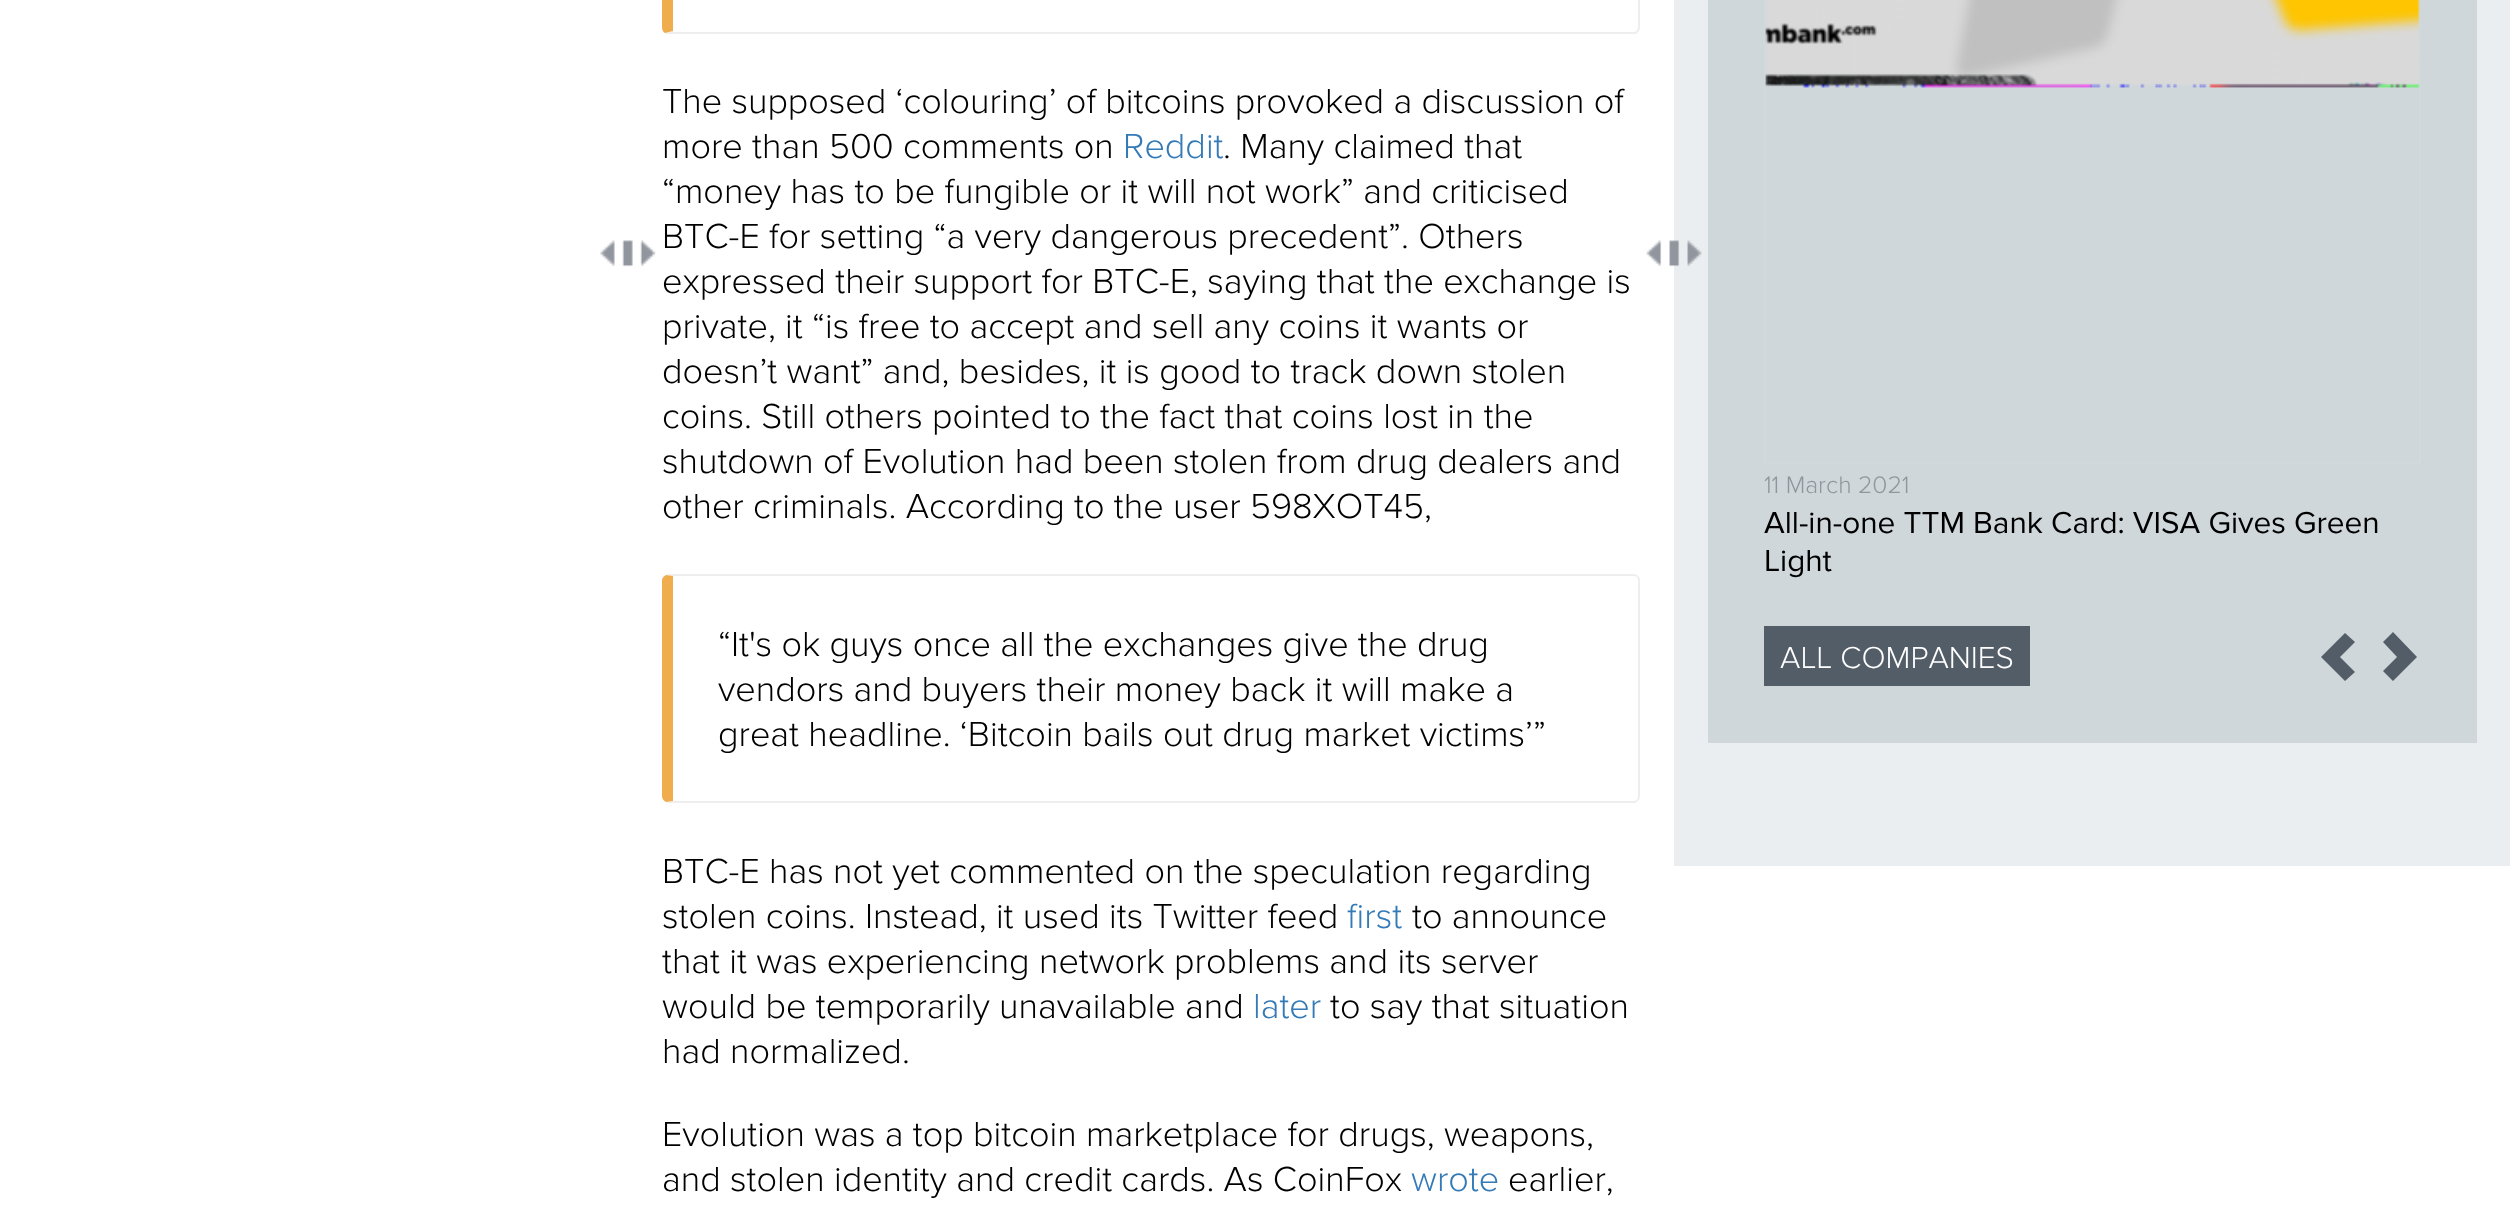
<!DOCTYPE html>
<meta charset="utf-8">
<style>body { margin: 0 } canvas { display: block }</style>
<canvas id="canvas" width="2510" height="1207"></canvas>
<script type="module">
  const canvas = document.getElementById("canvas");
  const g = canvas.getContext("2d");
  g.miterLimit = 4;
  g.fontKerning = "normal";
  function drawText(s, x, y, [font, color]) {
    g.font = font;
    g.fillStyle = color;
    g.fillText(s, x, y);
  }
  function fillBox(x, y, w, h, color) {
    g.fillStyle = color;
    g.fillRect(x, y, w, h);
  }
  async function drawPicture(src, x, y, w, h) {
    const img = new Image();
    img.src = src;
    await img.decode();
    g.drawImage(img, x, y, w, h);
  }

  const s1 = ["300 36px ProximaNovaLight", "#000000"];
  const s2 = ["300 36px ProximaNovaLight", "#337AB7"];
  const s3 = ["300 24.75px ProximaNovaLight", "#91969E"];
  const s4 = ["31.5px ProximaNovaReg", "#000000"];
  const s5 = ["300 31.5px ProximaNovaLight", "#FFFFFF"];

  fillBox(0, 0, 2510, 1207, "#FFFFFF");
  await drawPicture("pic1.png", 600, 240, 56, 27);
  g.fillStyle = "#EEEEEE";
  g.beginPath();
  g.moveTo(1638, -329);
  g.bezierCurveTo(1639, -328, 1640, -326, 1640, -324);
  g.lineTo(1640, 27);
  g.bezierCurveTo(1640, 29, 1639, 31, 1638, 32);
  g.lineTo(1637, 30);
  g.lineTo(1638, 27);
  g.lineTo(1638, -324);
  g.bezierCurveTo(1638, -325, 1637, -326, 1636, -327);
  g.closePath();
  g.fill();
  g.beginPath();
  g.moveTo(666, 34);
  g.lineTo(665, 33);
  g.lineTo(673, 31);
  g.lineTo(673, 32);
  g.lineTo(1634, 32);
  g.bezierCurveTo(1635, 32, 1636, 31, 1637, 30);
  g.lineTo(1638, 32);
  g.lineTo(1636, 34);
  g.closePath();
  g.fill();
  g.fillStyle = "#F0AD4E";
  g.beginPath();
  g.moveTo(673, -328);
  g.lineTo(673, 31);
  g.lineTo(665, 33);
  g.bezierCurveTo(663, 32, 662, 30, 662, 27);
  g.lineTo(662, -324);
  g.bezierCurveTo(662, -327, 663, -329, 665, -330);
  g.lineTo(675, -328);
  g.closePath();
  g.fill();
  drawText("The supposed ‘colouring’ of bitcoins provoked a discussion of", 662, 113, s1);
  drawText("more than 500 comments on", 662, 158, s1);
  drawText("Reddit", 1123, 158, s2);
  drawText(". Many claimed that", 1223, 158, s1);
  drawText("“money has to be fungible or it will not work” and criticised", 662, 203, s1);
  drawText("BTC-E for setting “a very dangerous precedent”. Others", 662, 248, s1);
  drawText("expressed their support for BTC-E, saying that the exchange is", 662, 293, s1);
  drawText("private, it “is free to accept and sell any coins it wants or", 662, 338, s1);
  drawText("doesn’t want” and, besides, it is good to track down stolen", 662, 383, s1);
  drawText("coins. Still others pointed to the fact that coins lost in the", 662, 428, s1);
  drawText("shutdown of Evolution had been stolen from drug dealers and", 662, 473, s1);
  drawText("other criminals. According to the user 598XOT45,", 662, 518, s1);
  g.fillStyle = "#EEEEEE";
  g.beginPath();
  g.moveTo(668, 574);
  g.lineTo(666, 575);
  g.lineTo(673, 576);
  g.lineTo(1634, 576);
  g.lineTo(1637, 577);
  g.lineTo(1638, 576);
  g.bezierCurveTo(1637, 575, 1636, 574, 1634, 574);
  g.closePath();
  g.fill();
  g.beginPath();
  g.moveTo(1638, 576);
  g.bezierCurveTo(1639, 577, 1640, 578, 1640, 580);
  g.lineTo(1640, 796);
  g.bezierCurveTo(1640, 798, 1639, 800, 1638, 801);
  g.lineTo(1637, 800);
  g.lineTo(1638, 797);
  g.lineTo(1638, 580);
  g.lineTo(1637, 577);
  g.closePath();
  g.fill();
  g.beginPath();
  g.moveTo(1638, 801);
  g.bezierCurveTo(1637, 802, 1635, 803, 1634, 803);
  g.lineTo(668, 803);
  g.lineTo(666, 802);
  g.lineTo(673, 801);
  g.lineTo(1634, 801);
  g.lineTo(1637, 800);
  g.closePath();
  g.fill();
  g.fillStyle = "#F0AD4E";
  g.beginPath();
  g.moveTo(666, 575);
  g.bezierCurveTo(664, 576, 662, 578, 662, 580);
  g.lineTo(662, 796);
  g.bezierCurveTo(662, 799, 664, 801, 666, 802);
  g.lineTo(673, 801);
  g.lineTo(673, 576);
  g.closePath();
  g.fill();
  drawText("“It's ok guys once all the exchanges give the drug", 718, 656, s1);
  drawText("vendors and buyers their money back it will make a", 718, 701, s1);
  drawText("great headline. ‘Bitcoin bails out drug market victims’”", 718, 746, s1);
  drawText("BTC-E has not yet commented on the speculation regarding", 662, 883, s1);
  drawText("stolen coins. Instead, it used its Twitter feed", 662, 928, s1);
  drawText("first", 1347, 928, s2);
  drawText("to announce", 1412, 928, s1);
  drawText("that it was experiencing network problems and its server", 662, 973, s1);
  drawText("would be temporarily unavailable and", 662, 1018, s1);
  drawText("later", 1253, 1018, s2);
  drawText("to say that situation", 1330, 1018, s1);
  drawText("had normalized.", 662, 1063, s1);
  drawText("Evolution was a top bitcoin marketplace for drugs, weapons,", 662, 1146, s1);
  drawText("and stolen identity and credit cards. As CoinFox", 662, 1191, s1);
  drawText("wrote", 1411, 1191, s2);
  drawText("earlier,", 1508, 1191, s1);
  fillBox(1674, 0, 836, 866, "#EAEEF0");
  await drawPicture("pic2.png", 1646, 240, 56, 27);
  fillBox(1708, 0, 769, 743, "#CFD7DA");
  g.strokeStyle = "#D1D9DD";
  g.lineWidth = 2;
  g.strokeRect(1765, -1, 655, 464);
  await drawPicture("pic3.png", 1765, 0, 656, 88);
  drawText("11 March 2021", 1764, 493, s3);
  drawText("All-in-one TTM Bank Card: VISA Gives Green", 1764, 533, s4);
  drawText("Light", 1764, 571, s4);
  fillBox(1764, 626, 266, 60, "#535D67");
  drawText("ALL COMPANIES", 1780, 668, s5);
  g.fillStyle = "#535D67";
  g.beginPath();
  g.moveTo(2321, 657);
  g.lineTo(2345, 681);
  g.lineTo(2355, 672);
  g.lineTo(2340, 657);
  g.lineTo(2355, 642);
  g.lineTo(2345, 633);
  g.closePath();
  g.fill();
  g.beginPath();
  g.moveTo(2383, 671);
  g.lineTo(2397, 657);
  g.lineTo(2383, 642);
  g.lineTo(2393, 632);
  g.lineTo(2417, 657);
  g.lineTo(2393, 681);
  g.closePath();
  g.fill();
</script>
